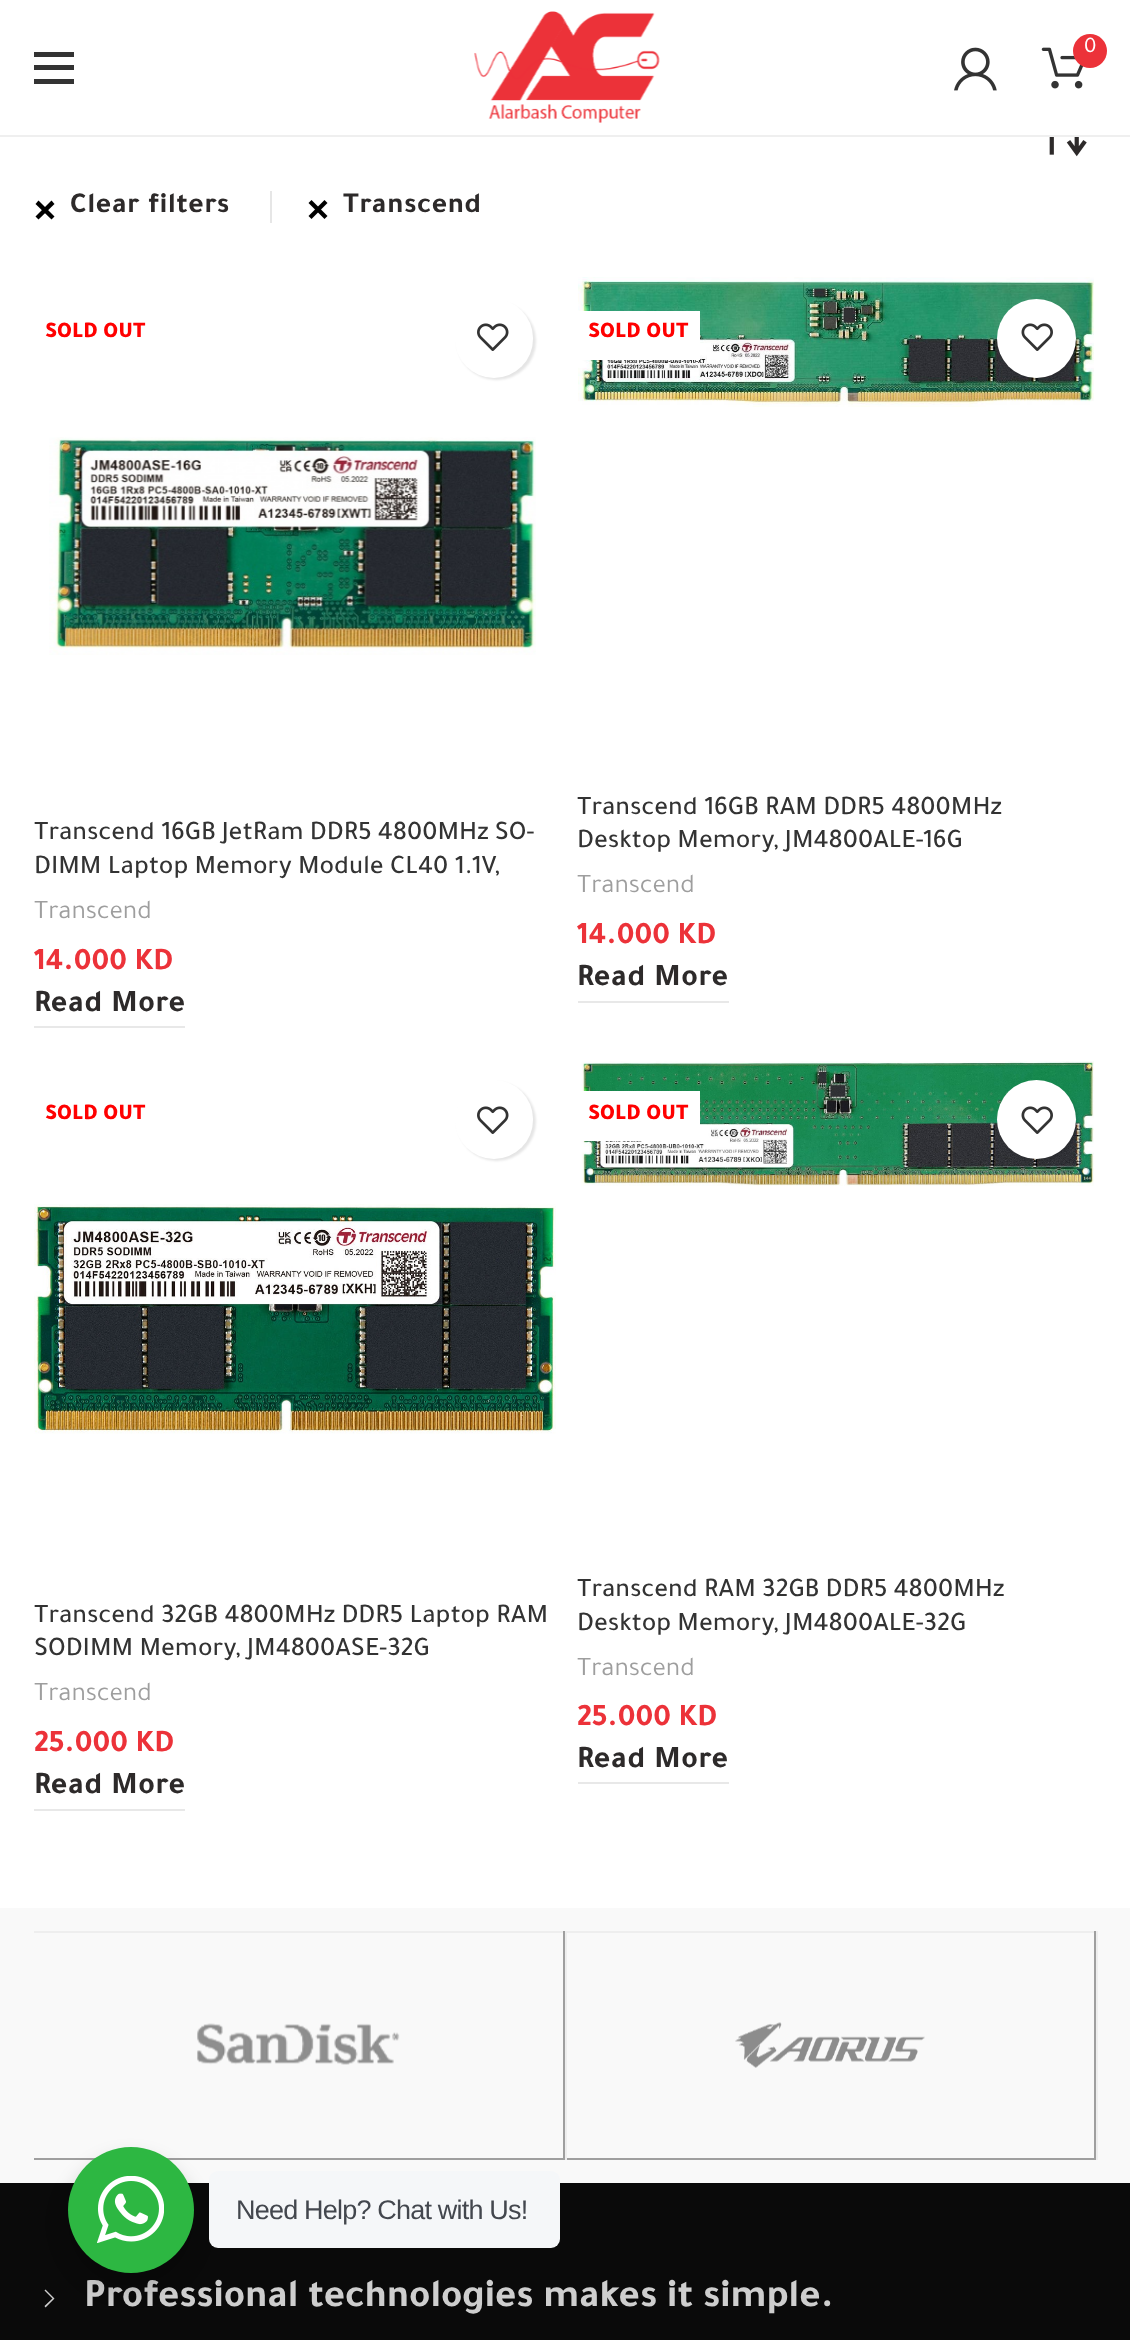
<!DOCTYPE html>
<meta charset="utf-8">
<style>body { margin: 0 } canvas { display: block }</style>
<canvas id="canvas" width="1130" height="2340"></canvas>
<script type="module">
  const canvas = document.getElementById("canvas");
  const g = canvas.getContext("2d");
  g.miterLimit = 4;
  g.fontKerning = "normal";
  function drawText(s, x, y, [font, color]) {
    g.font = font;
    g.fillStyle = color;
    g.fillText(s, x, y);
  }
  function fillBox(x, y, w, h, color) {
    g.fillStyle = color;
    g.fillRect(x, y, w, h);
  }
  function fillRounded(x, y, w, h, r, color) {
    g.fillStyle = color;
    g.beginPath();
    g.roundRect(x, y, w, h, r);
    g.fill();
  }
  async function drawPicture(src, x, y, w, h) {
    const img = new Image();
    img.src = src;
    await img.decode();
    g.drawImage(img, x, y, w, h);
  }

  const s1 = ["22.5px Tajawal", "#FFFFFF"];
  const s2 = ["bold 29.25px Tajawal", "#2D2A2A"];
  const s3 = ["900 22.5px Tajawal", "#FF0000"];
  const s4 = ["500 27px Tajawal", "#333333"];
  const s5 = ["27px Tajawal", "#9E9E9E"];
  const s6 = ["bold 31.5px Tajawal", "#EC3239"];
  const s7 = ["bold 31.5px Tajawal", "#2D2A2A"];
  const s8 = ["bold 40.5px Tajawal", "#CECECE"];
  const s9 = ["27px Liberation Sans", "#43474E"];

  fillBox(0, 0, 1130, 2340, "#FFFFFF");
  fillBox(0, 135, 1130, 2, "#EFEFEF");
  await drawPicture("pic1.png", 474, 11, 186, 112);
  await drawPicture("pic2.png", 1041, 47, 43, 42);
  g.fillStyle = "#EC3239";
  g.beginPath();
  g.arc(1090, 51, 17, 0, Math.PI * 2);
  g.fill();
  drawText("0", 1084, 52, s1);
  await drawPicture("pic3.png", 954, 47, 43, 44);
  fillBox(34, 65, 40, 5, "#333333");
  fillBox(34, 52, 40, 5, "#333333");
  fillBox(34, 79, 40, 5, "#333333");
  await drawPicture("pic4.png", 1049, 137, 38, 20);
  fillBox(270, 191, 2, 32, "#E6E6E6");
  g.fillStyle = "#000000";
  g.beginPath();
  g.moveTo(38.5, 200.5);
  g.lineTo(54.5, 216.5);
  g.lineTo(51.5, 219.5);
  g.lineTo(35.5, 204);
  g.closePath();
  g.fill();
  g.letterSpacing = "0.7px";
  drawText("Clear filters", 70, 212, s2);
  g.fillStyle = "#000000";
  g.beginPath();
  g.moveTo(35.5, 216.5);
  g.lineTo(51.5, 200.5);
  g.lineTo(54.5, 204);
  g.lineTo(38.5, 219.5);
  g.closePath();
  g.fill();
  g.beginPath();
  g.moveTo(311.5, 200);
  g.lineTo(327.5, 216);
  g.lineTo(324.5, 219);
  g.lineTo(308.5, 203);
  g.closePath();
  g.fill();
  drawText("Transcend", 343, 212, s2);
  g.fillStyle = "#000000";
  g.beginPath();
  g.moveTo(308.5, 216);
  g.lineTo(324.5, 200);
  g.lineTo(327.5, 203);
  g.lineTo(311.5, 219);
  g.closePath();
  g.fill();
  g.letterSpacing = "0px";
  drawText("SOLD OUT", 45, 337, s3);
  await drawPicture("pic5.png", 49, 437, 487, 218);
  g.fillStyle = "rgba(0, 0, 0, 0.1)";
  g.filter = "blur(1px)";
  g.beginPath();
  g.roundRect(457, 302, 79, 78, 39);
  g.fill();
  g.filter = "none";
  fillRounded(455, 299, 78, 79, 39, "#FFFFFF");
  await drawPicture("pic6.png", 477, 323, 32, 28);
  drawText("Transcend 16GB JetRam DDR5 4800MHz SO-", 34, 839, s4);
  drawText("DIMM Laptop Memory Module CL40 1.1V,", 34, 873, s4);
  drawText("Transcend", 34, 918, s5);
  drawText("14.000 KD", 34, 969, s6);
  fillBox(34, 1026, 151, 2, "#E8E8E8");
  g.letterSpacing = "0.7px";
  drawText("Read More", 34, 1011, s7);
  await drawPicture("pic7.png", 578, 277, 516, 130);
  fillBox(578, 311, 122, 49, "#FFFFFF");
  g.letterSpacing = "0px";
  drawText("SOLD OUT", 588, 337, s3);
  g.fillStyle = "rgba(0, 0, 0, 0.1)";
  g.filter = "blur(1px)";
  g.beginPath();
  g.roundRect(999, 302, 79, 78, 39);
  g.fill();
  g.filter = "none";
  g.fillStyle = "#FFFFFF";
  g.beginPath();
  g.arc(1036.5, 338.5, 39.5, 0, Math.PI * 2);
  g.fill();
  await drawPicture("pic8.png", 1021, 323, 32, 28);
  drawText("Transcend 16GB RAM DDR5 4800MHz", 577, 814, s4);
  drawText("Desktop Memory, JM4800ALE-16G", 577, 847, s4);
  drawText("Transcend", 577, 892, s5);
  drawText("14.000 KD", 577, 943, s6);
  fillBox(578, 1001, 151, 2, "#E8E8E8");
  g.letterSpacing = "0.7px";
  drawText("Read More", 577, 985, s7);
  g.letterSpacing = "0px";
  drawText("SOLD OUT", 45, 1119, s3);
  await drawPicture("pic9.png", 34, 1204, 522, 230);
  g.fillStyle = "rgba(0, 0, 0, 0.1)";
  g.filter = "blur(1px)";
  g.beginPath();
  g.roundRect(457, 1082, 79, 79, 39.5);
  g.fill();
  g.filter = "none";
  fillRounded(455, 1080, 78, 79, 39, "#FFFFFF");
  await drawPicture("pic6.png", 477, 1106, 32, 28);
  drawText("Transcend 32GB 4800MHz DDR5 Laptop RAM", 34, 1622, s4);
  drawText("SODIMM Memory, JM4800ASE-32G", 34, 1655, s4);
  drawText("Transcend", 34, 1700, s5);
  drawText("25.000 KD", 34, 1751, s6);
  fillBox(34, 1809, 151, 2, "#E8E8E8");
  g.letterSpacing = "0.7px";
  drawText("Read More", 34, 1793, s7);
  await drawPicture("pic10.png", 581, 1061, 513, 125);
  fillBox(581, 1091, 119, 50, "#FFFFFF");
  g.letterSpacing = "0px";
  drawText("SOLD OUT", 588, 1119, s3);
  g.fillStyle = "rgba(0, 0, 0, 0.1)";
  g.filter = "blur(1px)";
  g.beginPath();
  g.roundRect(999, 1082, 79, 79, 39.5);
  g.fill();
  g.filter = "none";
  g.fillStyle = "#FFFFFF";
  g.beginPath();
  g.arc(1036.5, 1119.5, 39.5, 0, Math.PI * 2);
  g.fill();
  await drawPicture("pic8.png", 1021, 1106, 32, 28);
  drawText("Transcend RAM 32GB DDR5 4800MHz", 577, 1596, s4);
  drawText("Desktop Memory, JM4800ALE-32G", 577, 1630, s4);
  drawText("Transcend", 577, 1675, s5);
  drawText("25.000 KD", 577, 1725, s6);
  fillBox(578, 1782, 151, 2, "#E8E8E8");
  g.letterSpacing = "0.7px";
  drawText("Read More", 577, 1767, s7);
  fillBox(0, 1908, 1130, 275, "#F9F9F9");
  fillBox(34, 1931, 1062, 2, "#EEEEEE");
  fillBox(563, 1931, 2, 229, "#9F9F9F");
  fillBox(34, 2158, 531, 2, "#9F9F9F");
  await drawPicture("pic11.png", 197, 2023, 203, 42);
  fillBox(1094, 1931, 2, 229, "#9F9F9F");
  fillBox(565, 2158, 531, 2, "#9F9F9F");
  fillBox(565, 1931, 2, 229, "#EEEEEE");
  await drawPicture("pic12.png", 735, 2022, 190, 46);
  fillBox(1096, 1931, 2, 229, "#EEEEEE");
  fillBox(0, 2183, 1130, 157, "#0A0A0A");
  g.fillStyle = "#CECECE";
  g.beginPath();
  g.moveTo(45.5, 2289.5);
  g.lineTo(54.5, 2298.5);
  g.lineTo(45.5, 2307.5);
  g.lineTo(44.5, 2306);
  g.lineTo(52.5, 2298.5);
  g.lineTo(44.5, 2290.5);
  g.closePath();
  g.fill();
  g.letterSpacing = "0px";
  drawText("Professional technologies makes it simple.", 84, 2306, s8);
  g.fillStyle = "rgba(0, 0, 0, 0.14)";
  g.filter = "blur(9px)";
  g.beginPath();
  g.roundRect(63, 2156, 135, 135, 67.5);
  g.fill();
  g.filter = "none";
  g.fillStyle = "#2DB742";
  g.beginPath();
  g.arc(131, 2210, 63, 0, Math.PI * 2);
  g.fill();
  await drawPicture("pic13.png", 97, 2176, 67, 67);
  fillRounded(209, 2171, 351, 77, 9, "#F5F7F9");
  g.letterSpacing = "-0.8px";
  drawText("Need Help? Chat with Us!", 236, 2219, s9);
</script>
